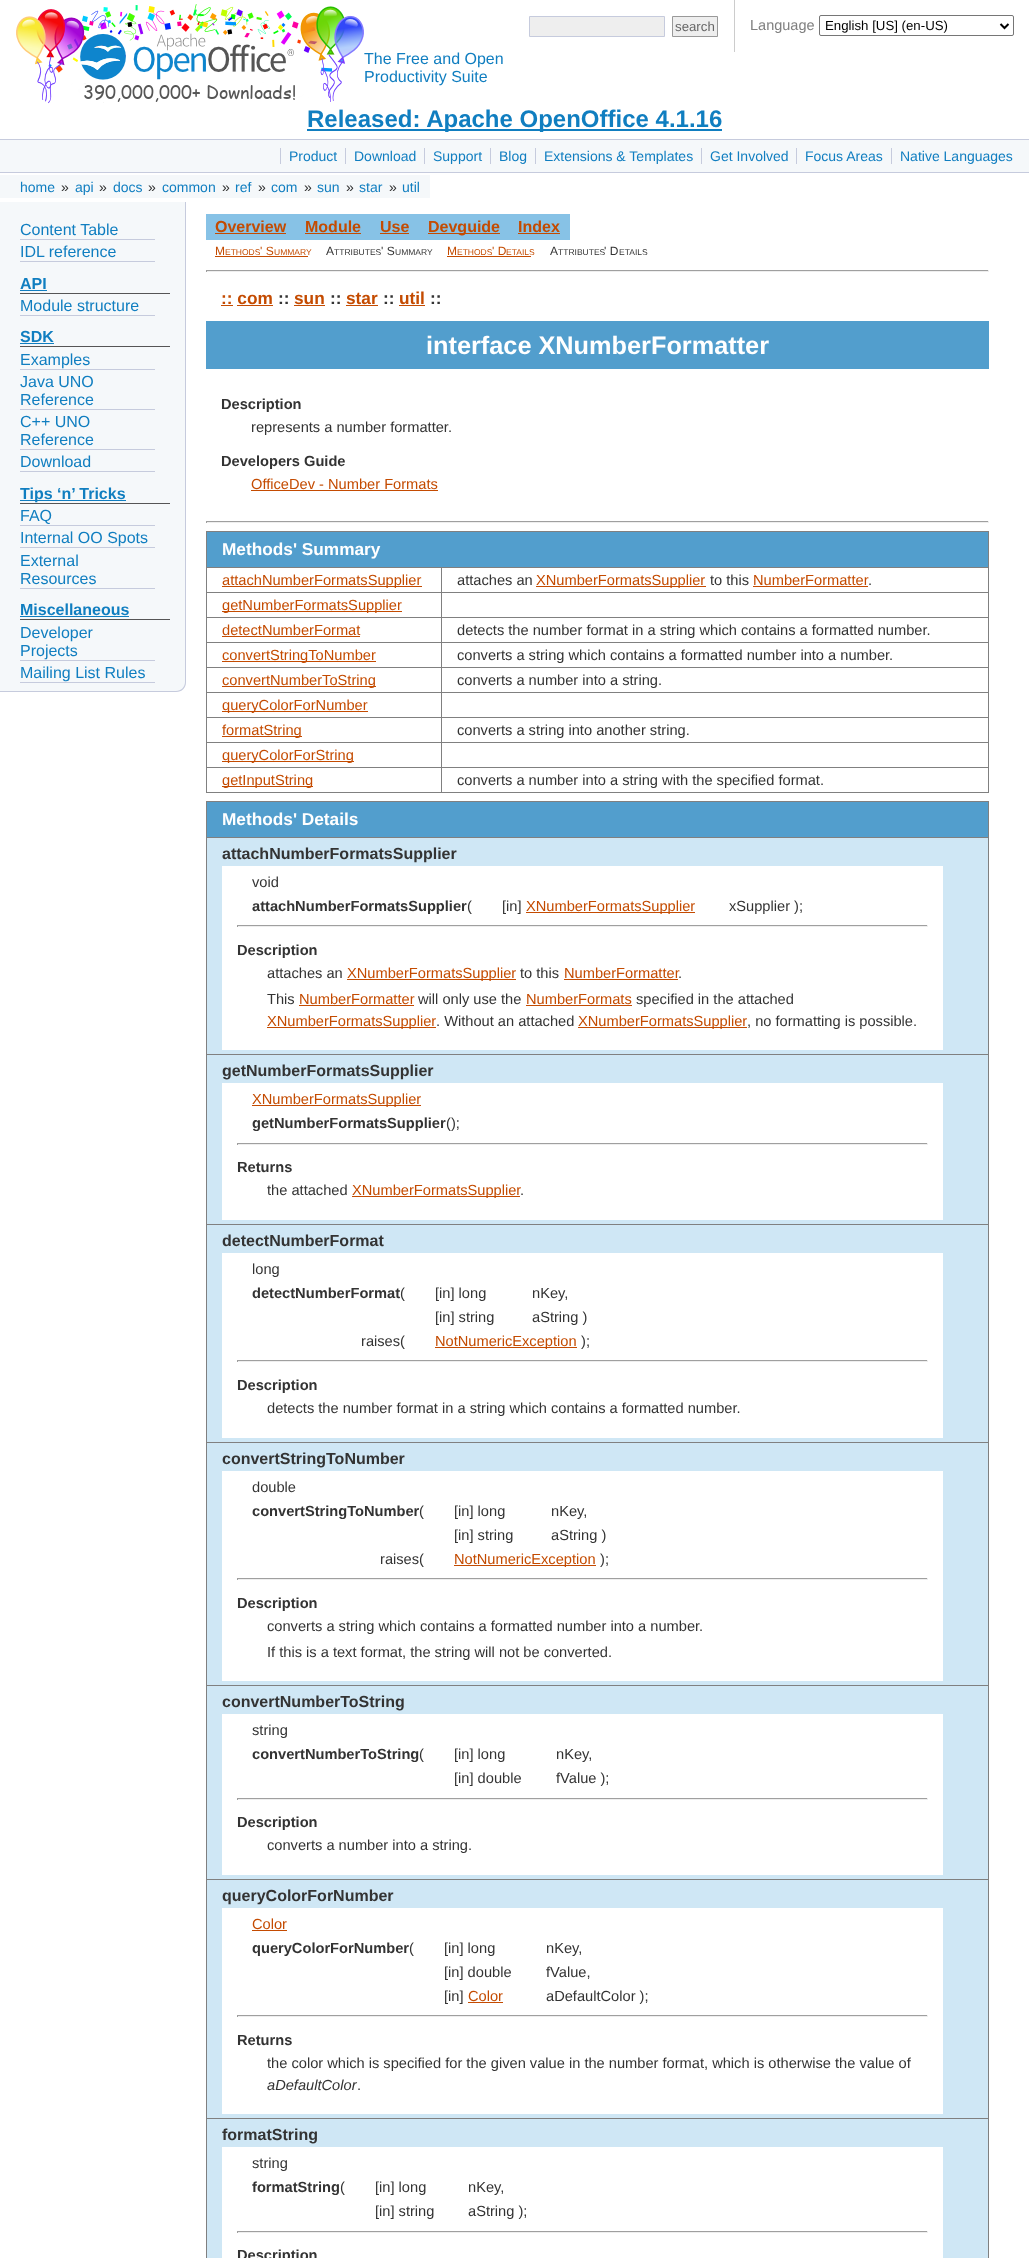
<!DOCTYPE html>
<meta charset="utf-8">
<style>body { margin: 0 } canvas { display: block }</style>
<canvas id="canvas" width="1029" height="2258"></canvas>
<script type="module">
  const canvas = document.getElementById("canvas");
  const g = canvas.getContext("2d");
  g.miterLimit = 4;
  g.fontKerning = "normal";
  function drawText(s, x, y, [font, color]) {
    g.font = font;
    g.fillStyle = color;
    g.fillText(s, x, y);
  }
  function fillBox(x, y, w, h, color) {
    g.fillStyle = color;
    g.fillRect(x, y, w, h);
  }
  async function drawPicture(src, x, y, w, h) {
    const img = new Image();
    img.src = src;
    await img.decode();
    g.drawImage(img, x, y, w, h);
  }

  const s1 = ["13.25px Liberation Sans", "#666666"];
  const s2 = ["14.5px Liberation Sans", "#808080"];
  const s3 = ["13.25px Liberation Sans", "#000000"];
  const s4 = ["16px Liberation Sans", "#107EC0"];
  const s5 = ["bold 24px Liberation Sans", "#107EC0"];
  const s6 = ["14px Liberation Sans", "#107EC0"];
  const s7 = ["14px Liberation Sans", "#333333"];
  const s8 = ["bold 16px Liberation Sans", "#107EC0"];
  const s9 = ["bold 16px Liberation Sans", "#C44B01"];
  const s10 = ["12px Liberation Sans", "#C44B01"];
  const s11 = ["8.5px Liberation Sans", "#C44B01"];
  const s12 = ["12px Liberation Sans", "#333333"];
  const s13 = ["8.5px Liberation Sans", "#333333"];
  const s14 = ["bold 17.25px Liberation Sans", "#C44B01"];
  const s15 = ["bold 17.25px Liberation Sans", "#333333"];
  const s16 = ["bold 25.3px Liberation Sans", "#FFFFFF"];
  const s17 = ["bold 14.65px Liberation Sans", "#333333"];
  const s18 = ["14.65px Liberation Sans", "#333333"];
  const s19 = ["14.65px Liberation Sans", "#C44B01"];
  const s20 = ["bold 17.25px Liberation Sans", "#FFFFFF"];
  const s21 = ["bold 16px Liberation Sans", "#333333"];
  const s22 = ["italic 14.65px Liberation Sans", "#333333"];

  fillBox(0, 0, 1029, 2258, "#FFFFFF");
  await drawPicture("pic1.png", 16, 4, 348, 100);
  g.fillStyle = "#EEEEEE";
  g.beginPath();
  g.rect(529.5, 16.5, 135, 20);
  g.fill();
  g.strokeStyle = "#C6CBDD";
  g.stroke();
  g.beginPath();
  g.rect(672.5, 16.5, 45, 20);
  g.fill();
  g.strokeStyle = "#999999";
  g.stroke();
  drawText("search", 675, 31, s1);
  fillBox(734, 0, 1, 52, "#CCCCCC");
  drawText("Language", 750, 30, s2);
  g.beginPath();
  g.roundRect(819.5, 15.5, 194, 20, 1.5);
  g.strokeStyle = "#767676";
  g.stroke();
  g.beginPath();
  g.moveTo(1000.5, 24);
  g.lineTo(1004.5, 28);
  g.lineTo(1008.5, 24);
  g.strokeStyle = "#000000";
  g.lineWidth = 2;
  g.stroke();
  drawText("English [US] (en-US)", 825, 30, s3);
  drawText("The Free and Open", 364, 64, s4);
  drawText("Productivity Suite", 364, 82, s4);
  fillBox(307, 129, 415, 2, "#107EC0");
  drawText("Released: Apache OpenOffice 4.1.16", 307, 127, s5);
  fillBox(0, 140, 1029, 32, "#F5F8FA");
  fillBox(0, 139, 1029, 1, "#C6CBDD");
  fillBox(0, 172, 1029, 1, "#C6CBDD");
  drawText("Product", 289, 161, s6);
  fillBox(280, 148, 1, 16, "#C6CBDD");
  drawText("Download", 354, 161, s6);
  fillBox(345, 148, 1, 16, "#C6CBDD");
  drawText("Support", 433, 161, s6);
  fillBox(424, 148, 1, 16, "#C6CBDD");
  drawText("Blog", 499, 161, s6);
  fillBox(490, 148, 1, 16, "#C6CBDD");
  drawText("Extensions & Templates", 544, 161, s6);
  fillBox(535, 148, 1, 16, "#C6CBDD");
  drawText("Get Involved", 710, 161, s6);
  fillBox(701, 148, 1, 16, "#C6CBDD");
  drawText("Focus Areas", 805, 161, s6);
  fillBox(796, 148, 1, 16, "#C6CBDD");
  drawText("Native Languages", 900, 161, s6);
  fillBox(891, 148, 1, 16, "#C6CBDD");
  fillBox(0, 175, 430, 23, "#F5F8FA");
  drawText("home", 20, 192, s6);
  drawText("»", 61, 192, s7);
  drawText("api", 75, 192, s6);
  drawText("»", 99, 192, s7);
  drawText("docs", 113, 192, s6);
  drawText("»", 148, 192, s7);
  drawText("common", 162, 192, s6);
  drawText("»", 222, 192, s7);
  drawText("ref", 235, 192, s6);
  drawText("»", 258, 192, s7);
  drawText("com", 271, 192, s6);
  drawText("»", 304, 192, s7);
  drawText("sun", 317, 192, s6);
  drawText("»", 346, 192, s7);
  drawText("star", 359, 192, s6);
  drawText("»", 389, 192, s7);
  drawText("util", 402, 192, s6);
  g.fillStyle = "#F5F8FA";
  g.beginPath();
  g.roundRect(0, 202, 186, 490, [0, 0, 10, 0]);
  g.fill();
  g.fillStyle = "#C6CBDD";
  g.beginPath();
  g.moveTo(0, 202);
  g.lineTo(186, 202);
  g.lineTo(186, 682);
  g.bezierCurveTo(186, 688, 182, 692, 176, 692);
  g.lineTo(0, 692);
  g.closePath();
  g.moveTo(0, 202);
  g.lineTo(185, 202);
  g.lineTo(185, 682);
  g.bezierCurveTo(185, 687, 181, 691, 176, 691);
  g.lineTo(0, 691);
  g.closePath();
  g.fill("evenodd");
  fillBox(20, 239, 135, 1, "#C6CBDD");
  drawText("Content Table", 20, 235, s4);
  fillBox(20, 261, 135, 1, "#C6CBDD");
  drawText("IDL reference", 20, 257, s4);
  fillBox(20, 293, 150, 1, "#555555");
  drawText("API", 20, 289, s8);
  fillBox(20, 290, 27, 1, "#107EC0");
  fillBox(20, 315, 135, 1, "#C6CBDD");
  drawText("Module structure", 20, 311, s4);
  fillBox(20, 346, 150, 1, "#555555");
  drawText("SDK", 20, 342, s8);
  fillBox(20, 343, 34, 1, "#107EC0");
  fillBox(20, 369, 135, 1, "#C6CBDD");
  drawText("Examples", 20, 365, s4);
  fillBox(20, 409, 135, 1, "#C6CBDD");
  drawText("Java UNO", 20, 387, s4);
  drawText("Reference", 20, 405, s4);
  fillBox(20, 449, 135, 1, "#C6CBDD");
  drawText("C++ UNO", 20, 427, s4);
  drawText("Reference", 20, 445, s4);
  fillBox(20, 471, 135, 1, "#C6CBDD");
  drawText("Download", 20, 467, s4);
  fillBox(20, 503, 150, 1, "#555555");
  fillBox(20, 500, 106, 1, "#107EC0");
  drawText("Tips ‘n’ Tricks", 20, 499, s8);
  fillBox(20, 525, 135, 1, "#C6CBDD");
  drawText("FAQ", 20, 521, s4);
  fillBox(20, 547, 135, 1, "#C6CBDD");
  drawText("Internal OO Spots", 20, 543, s4);
  fillBox(20, 588, 135, 1, "#C6CBDD");
  drawText("External", 20, 566, s4);
  drawText("Resources", 20, 584, s4);
  fillBox(20, 619, 150, 1, "#555555");
  drawText("Miscellaneous", 20, 615, s8);
  fillBox(20, 616, 109, 1, "#107EC0");
  fillBox(20, 660, 135, 1, "#C6CBDD");
  drawText("Developer", 20, 638, s4);
  drawText("Projects", 20, 656, s4);
  fillBox(20, 682, 135, 1, "#C6CBDD");
  drawText("Mailing List Rules", 20, 678, s4);
  fillBox(206, 214, 364, 26, "#87C2E6");
  drawText("Overview", 215, 232, s9);
  fillBox(215, 233, 71, 1, "#C44B01");
  drawText("Module", 305, 232, s9);
  fillBox(305, 233, 56, 1, "#C44B01");
  drawText("Use", 380, 232, s9);
  fillBox(380, 233, 29, 1, "#C44B01");
  fillBox(428, 233, 72, 1, "#C44B01");
  drawText("Devguide", 428, 232, s9);
  drawText("Index", 518, 232, s9);
  fillBox(518, 233, 42, 1, "#C44B01");
  drawText("M", 215, 255, s10);
  drawText("ETHODS", 225, 255, s11);
  fillBox(215, 256, 93, 1, "#C44B01");
  drawText("' S", 260, 255, s10);
  drawText("UMMARY", 274, 255, s11);
  drawText("A", 326, 255, s12);
  drawText("TTRIBUTES", 334, 255, s13);
  drawText("' S", 381, 255, s12);
  drawText("UMMARY", 395, 255, s13);
  drawText("M", 447, 255, s10);
  drawText("ETHODS", 457, 255, s11);
  fillBox(447, 256, 84, 1, "#C44B01");
  drawText("' D", 492, 255, s10);
  drawText("ETAILS", 506, 255, s11);
  drawText("A", 550, 255, s12);
  drawText("TTRIBUTES", 558, 255, s13);
  drawText("' D", 604, 255, s12);
  drawText("ETAILS", 619, 255, s13);
  fillBox(206, 270, 783, 1, "#9F9F9F");
  fillBox(988, 270, 1, 2, "#EEEEEE");
  fillBox(206, 271, 783, 1, "#EEEEEE");
  fillBox(206, 270, 1, 2, "#9F9F9F");
  drawText(":: com", 221, 304, s14);
  fillBox(221, 305, 12, 1, "#C44B01");
  drawText("::", 278, 304, s15);
  drawText("sun", 294, 304, s14);
  fillBox(294, 305, 31, 1, "#C44B01");
  drawText("::", 330, 304, s15);
  drawText("star", 346, 304, s14);
  fillBox(346, 305, 32, 1, "#C44B01");
  drawText("::", 383, 304, s15);
  drawText("util", 399, 304, s14);
  fillBox(399, 305, 26, 1, "#C44B01");
  drawText("::", 430, 304, s15);
  fillBox(237, 305, 36, 1, "#C44B01");
  fillBox(206, 321, 783, 48, "#529ECD");
  drawText("interface XNumberFormatter", 426, 354, s16);
  drawText("Description", 221, 409, s17);
  drawText("represents a number formatter.", 251, 432, s18);
  drawText("Developers Guide", 221, 466, s17);
  drawText("OfficeDev - Number Formats", 251, 489, s19);
  fillBox(251, 490, 187, 1, "#C44B01");
  fillBox(206, 521, 783, 1, "#9F9F9F");
  fillBox(988, 521, 1, 2, "#EEEEEE");
  fillBox(206, 522, 783, 1, "#EEEEEE");
  fillBox(206, 521, 1, 2, "#9F9F9F");
  fillBox(206, 531, 783, 1, "#808080");
  fillBox(988, 531, 1, 262, "#808080");
  fillBox(206, 792, 783, 1, "#808080");
  fillBox(206, 531, 1, 262, "#808080");
  fillBox(207, 532, 781, 35, "#529ECD");
  drawText("Methods' Summary", 222, 555, s20);
  fillBox(441, 567, 548, 1, "#808080");
  fillBox(441, 592, 548, 1, "#808080");
  fillBox(441, 617, 548, 1, "#808080");
  fillBox(441, 642, 548, 1, "#808080");
  fillBox(441, 667, 548, 1, "#808080");
  fillBox(441, 692, 548, 1, "#808080");
  fillBox(441, 717, 548, 1, "#808080");
  fillBox(441, 742, 548, 1, "#808080");
  fillBox(441, 767, 548, 1, "#808080");
  fillBox(441, 767, 1, 26, "#808080");
  fillBox(206, 767, 236, 1, "#808080");
  fillBox(441, 742, 1, 26, "#808080");
  fillBox(206, 742, 236, 1, "#808080");
  fillBox(441, 717, 1, 26, "#808080");
  fillBox(206, 717, 236, 1, "#808080");
  fillBox(441, 692, 1, 26, "#808080");
  fillBox(206, 692, 236, 1, "#808080");
  fillBox(441, 667, 1, 26, "#808080");
  fillBox(206, 667, 236, 1, "#808080");
  fillBox(441, 642, 1, 26, "#808080");
  fillBox(206, 642, 236, 1, "#808080");
  fillBox(441, 617, 1, 26, "#808080");
  fillBox(206, 617, 236, 1, "#808080");
  fillBox(441, 592, 1, 26, "#808080");
  fillBox(206, 592, 236, 1, "#808080");
  fillBox(441, 567, 1, 26, "#808080");
  fillBox(206, 567, 236, 1, "#808080");
  fillBox(222, 586, 200, 1, "#C44B01");
  drawText("attachNumberFormatsSupplier", 222, 585, s19);
  drawText("attaches an", 457, 585, s18);
  fillBox(536, 586, 170, 1, "#C44B01");
  drawText("XNumberFormatsSupplier", 536, 585, s19);
  drawText("to this", 710, 585, s18);
  drawText("NumberFormatter", 753, 585, s19);
  fillBox(753, 586, 115, 1, "#C44B01");
  drawText(".", 868, 585, s18);
  fillBox(222, 611, 180, 1, "#C44B01");
  drawText("getNumberFormatsSupplier", 222, 610, s19);
  drawText("detectNumberFormat", 222, 635, s19);
  fillBox(222, 636, 138, 1, "#C44B01");
  drawText("detects the number format in a string which contains a formatted number.", 457, 635, s18);
  fillBox(222, 661, 154, 1, "#C44B01");
  drawText("convertStringToNumber", 222, 660, s19);
  drawText("converts a string which contains a formatted number into a number.", 457, 660, s18);
  fillBox(222, 686, 154, 1, "#C44B01");
  drawText("convertNumberToString", 222, 685, s19);
  drawText("converts a number into a string.", 457, 685, s18);
  fillBox(222, 711, 146, 1, "#C44B01");
  drawText("queryColorForNumber", 222, 710, s19);
  fillBox(222, 736, 80, 1, "#C44B01");
  drawText("formatString", 222, 735, s19);
  drawText("converts a string into another string.", 457, 735, s18);
  fillBox(222, 761, 132, 1, "#C44B01");
  drawText("queryColorForString", 222, 760, s19);
  fillBox(222, 786, 91, 1, "#C44B01");
  drawText("getInputString", 222, 785, s19);
  drawText("converts a number into a string with the specified format.", 457, 785, s18);
  fillBox(206, 801, 783, 1, "#808080");
  fillBox(988, 801, 1, 1457, "#808080");
  fillBox(206, 801, 1, 1457, "#808080");
  fillBox(207, 802, 781, 35, "#529ECD");
  drawText("Methods' Details", 222, 825, s20);
  fillBox(207, 838, 781, 216, "#CFE7F5");
  fillBox(206, 837, 783, 1, "#808080");
  drawText("attachNumberFormatsSupplier", 222, 859, s21);
  fillBox(222, 866, 721, 184, "#FFFFFF");
  drawText("void", 252, 887, s18);
  drawText("attachNumberFormatsSupplier", 252, 911, s17);
  drawText("(", 467, 911, s18);
  drawText("[in]", 502, 911, s18);
  fillBox(526, 912, 169, 1, "#C44B01");
  drawText("XNumberFormatsSupplier", 526, 911, s19);
  drawText("xSupplier );", 729, 911, s18);
  fillBox(237, 925, 691, 1, "#9F9F9F");
  fillBox(927, 925, 1, 2, "#EEEEEE");
  fillBox(237, 926, 691, 1, "#EEEEEE");
  fillBox(237, 925, 1, 2, "#9F9F9F");
  drawText("Description", 237, 955, s17);
  drawText("attaches an", 267, 978, s18);
  fillBox(347, 979, 169, 1, "#C44B01");
  drawText("XNumberFormatsSupplier", 347, 978, s19);
  drawText("to this", 520, 978, s18);
  drawText("NumberFormatter", 564, 978, s19);
  fillBox(564, 979, 114, 1, "#C44B01");
  drawText(".", 678, 978, s18);
  drawText("This", 267, 1004, s18);
  drawText("NumberFormatter", 299, 1004, s19);
  fillBox(299, 1005, 115, 1, "#C44B01");
  drawText("will only use the", 418, 1004, s18);
  drawText("NumberFormats", 526, 1004, s19);
  fillBox(526, 1005, 106, 1, "#C44B01");
  drawText("specified in the attached", 636, 1004, s18);
  fillBox(267, 1027, 169, 1, "#C44B01");
  drawText("XNumberFormatsSupplier", 267, 1026, s19);
  drawText(". Without an attached", 436, 1026, s18);
  fillBox(578, 1027, 169, 1, "#C44B01");
  drawText("XNumberFormatsSupplier", 578, 1026, s19);
  drawText(", no formatting is possible.", 747, 1026, s18);
  fillBox(207, 1055, 781, 169, "#CFE7F5");
  fillBox(206, 1054, 783, 1, "#808080");
  drawText("getNumberFormatsSupplier", 222, 1076, s21);
  fillBox(222, 1083, 721, 137, "#FFFFFF");
  fillBox(252, 1105, 169, 1, "#C44B01");
  drawText("XNumberFormatsSupplier", 252, 1104, s19);
  drawText("getNumberFormatsSupplier", 252, 1128, s17);
  drawText("();", 446, 1128, s18);
  fillBox(237, 1143, 691, 1, "#9F9F9F");
  fillBox(927, 1143, 1, 2, "#EEEEEE");
  fillBox(237, 1144, 691, 1, "#EEEEEE");
  fillBox(237, 1143, 1, 2, "#9F9F9F");
  drawText("Returns", 237, 1172, s17);
  drawText("the attached", 267, 1195, s18);
  fillBox(352, 1196, 168, 1, "#C44B01");
  drawText("XNumberFormatsSupplier", 352, 1195, s19);
  drawText(".", 520, 1195, s18);
  fillBox(207, 1225, 781, 217, "#CFE7F5");
  fillBox(206, 1224, 783, 1, "#808080");
  drawText("detectNumberFormat", 222, 1246, s21);
  fillBox(222, 1253, 721, 185, "#FFFFFF");
  drawText("long", 252, 1274, s18);
  drawText("detectNumberFormat", 252, 1298, s17);
  drawText("(", 400, 1298, s18);
  drawText("[in] long", 435, 1298, s18);
  drawText("nKey,", 532, 1298, s18);
  drawText("[in] string", 435, 1322, s18);
  drawText("aString )", 532, 1322, s18);
  drawText("raises(", 361, 1346, s18);
  fillBox(435, 1347, 142, 1, "#C44B01");
  drawText("NotNumericException", 435, 1346, s19);
  drawText(");", 581, 1346, s18);
  fillBox(237, 1360, 691, 1, "#9F9F9F");
  fillBox(927, 1360, 1, 2, "#EEEEEE");
  fillBox(237, 1361, 691, 1, "#EEEEEE");
  fillBox(237, 1360, 1, 2, "#9F9F9F");
  drawText("Description", 237, 1390, s17);
  drawText("detects the number format in a string which contains a formatted number.", 267, 1413, s18);
  fillBox(207, 1443, 781, 242, "#CFE7F5");
  fillBox(206, 1442, 783, 1, "#808080");
  drawText("convertStringToNumber", 222, 1464, s21);
  fillBox(222, 1471, 721, 210, "#FFFFFF");
  drawText("double", 252, 1492, s18);
  drawText("convertStringToNumber", 252, 1516, s17);
  drawText("(", 419, 1516, s18);
  drawText("[in] long", 454, 1516, s18);
  drawText("nKey,", 551, 1516, s18);
  drawText("[in] string", 454, 1540, s18);
  drawText("aString )", 551, 1540, s18);
  drawText("raises(", 380, 1564, s18);
  fillBox(454, 1565, 142, 1, "#C44B01");
  drawText("NotNumericException", 454, 1564, s19);
  drawText(");", 600, 1564, s18);
  fillBox(237, 1578, 691, 1, "#9F9F9F");
  fillBox(927, 1578, 1, 2, "#EEEEEE");
  fillBox(237, 1579, 691, 1, "#EEEEEE");
  fillBox(237, 1578, 1, 2, "#9F9F9F");
  drawText("Description", 237, 1608, s17);
  drawText("converts a string which contains a formatted number into a number.", 267, 1631, s18);
  drawText("If this is a text format, the string will not be converted.", 267, 1657, s18);
  fillBox(207, 1686, 781, 193, "#CFE7F5");
  fillBox(206, 1685, 783, 1, "#808080");
  drawText("convertNumberToString", 222, 1707, s21);
  fillBox(222, 1714, 721, 161, "#FFFFFF");
  drawText("string", 252, 1735, s18);
  drawText("convertNumberToString", 252, 1759, s17);
  drawText("(", 419, 1759, s18);
  drawText("[in] long", 454, 1759, s18);
  drawText("nKey,", 556, 1759, s18);
  drawText("[in] double", 454, 1783, s18);
  drawText("fValue );", 556, 1783, s18);
  fillBox(237, 1798, 691, 1, "#9F9F9F");
  fillBox(927, 1798, 1, 2, "#EEEEEE");
  fillBox(237, 1799, 691, 1, "#EEEEEE");
  fillBox(237, 1798, 1, 2, "#9F9F9F");
  drawText("Description", 237, 1827, s17);
  drawText("converts a number into a string.", 267, 1850, s18);
  fillBox(207, 1880, 781, 238, "#CFE7F5");
  fillBox(206, 1879, 783, 1, "#808080");
  drawText("queryColorForNumber", 222, 1901, s21);
  fillBox(222, 1908, 721, 206, "#FFFFFF");
  drawText("Color", 252, 1929, s19);
  fillBox(252, 1930, 35, 1, "#C44B01");
  drawText("queryColorForNumber", 252, 1953, s17);
  drawText("(", 409, 1953, s18);
  drawText("[in] long", 444, 1953, s18);
  drawText("nKey,", 546, 1953, s18);
  drawText("[in] double", 444, 1977, s18);
  drawText("fValue,", 546, 1977, s18);
  drawText("[in]", 444, 2001, s18);
  drawText("Color", 468, 2001, s19);
  fillBox(468, 2002, 35, 1, "#C44B01");
  drawText("aDefaultColor );", 546, 2001, s18);
  fillBox(237, 2015, 691, 1, "#9F9F9F");
  fillBox(927, 2015, 1, 2, "#EEEEEE");
  fillBox(237, 2016, 691, 1, "#EEEEEE");
  fillBox(237, 2015, 1, 2, "#9F9F9F");
  drawText("Returns", 237, 2045, s17);
  drawText("the color which is specified for the given value in the number format, which is otherwise the value of", 267, 2068, s18);
  drawText("aDefaultColor", 267, 2090, s22);
  drawText(".", 357, 2090, s18);
  fillBox(207, 2119, 781, 139, "#CFE7F5");
  fillBox(206, 2118, 783, 1, "#808080");
  drawText("formatString", 222, 2140, s21);
  fillBox(222, 2147, 721, 111, "#FFFFFF");
  drawText("string", 252, 2168, s18);
  drawText("formatString", 252, 2192, s17);
  drawText("(", 340, 2192, s18);
  drawText("[in] long", 375, 2192, s18);
  drawText("nKey,", 468, 2192, s18);
  drawText("[in] string", 375, 2216, s18);
  drawText("aString );", 468, 2216, s18);
  fillBox(237, 2231, 691, 1, "#9F9F9F");
  fillBox(927, 2231, 1, 2, "#EEEEEE");
  fillBox(237, 2232, 691, 1, "#EEEEEE");
  fillBox(237, 2231, 1, 2, "#9F9F9F");
  drawText("Description", 237, 2260, s17);
</script>
